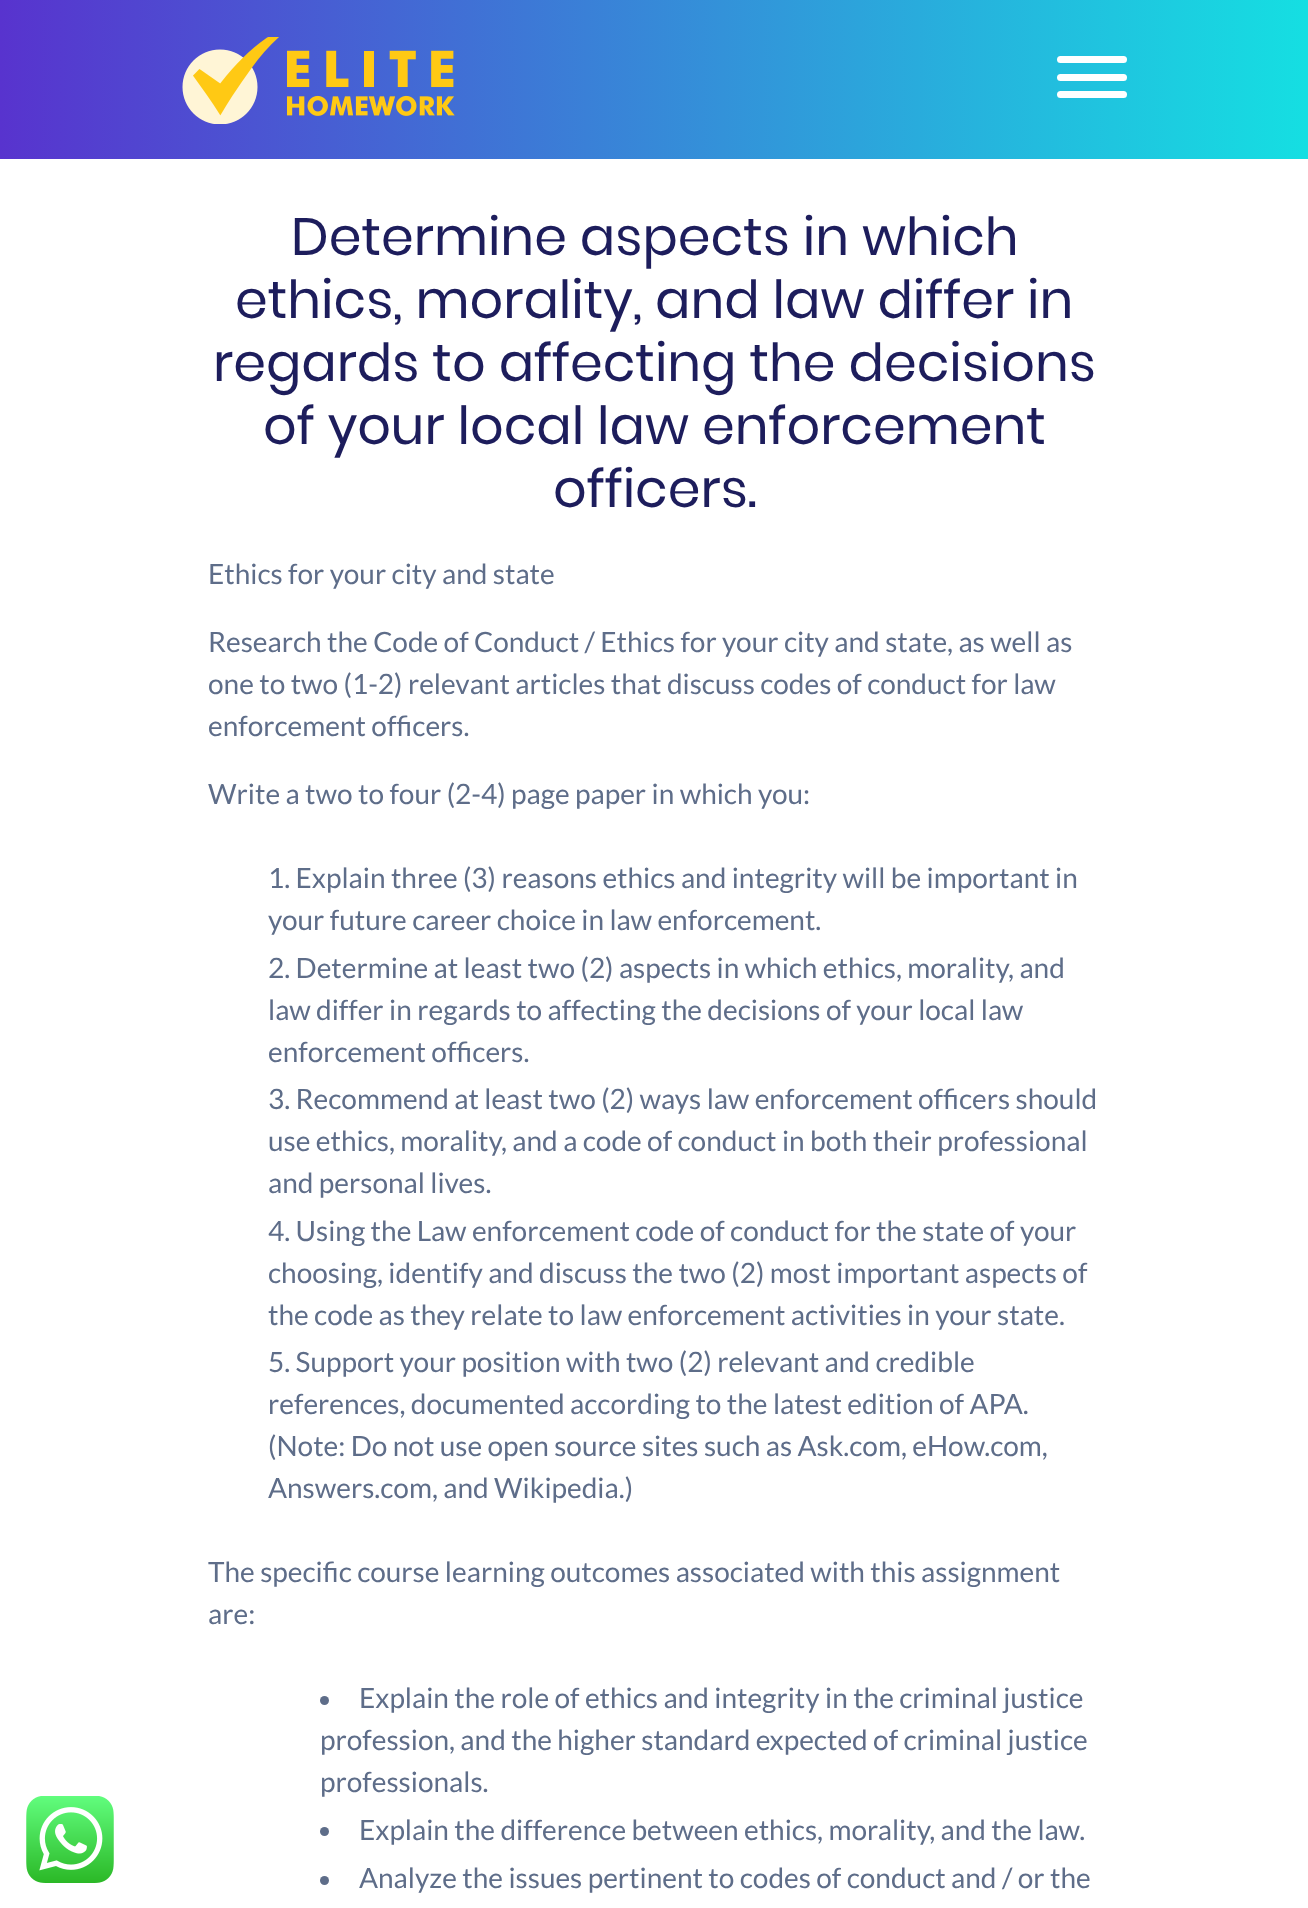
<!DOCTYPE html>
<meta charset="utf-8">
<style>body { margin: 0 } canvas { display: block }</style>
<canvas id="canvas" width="1308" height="1908"></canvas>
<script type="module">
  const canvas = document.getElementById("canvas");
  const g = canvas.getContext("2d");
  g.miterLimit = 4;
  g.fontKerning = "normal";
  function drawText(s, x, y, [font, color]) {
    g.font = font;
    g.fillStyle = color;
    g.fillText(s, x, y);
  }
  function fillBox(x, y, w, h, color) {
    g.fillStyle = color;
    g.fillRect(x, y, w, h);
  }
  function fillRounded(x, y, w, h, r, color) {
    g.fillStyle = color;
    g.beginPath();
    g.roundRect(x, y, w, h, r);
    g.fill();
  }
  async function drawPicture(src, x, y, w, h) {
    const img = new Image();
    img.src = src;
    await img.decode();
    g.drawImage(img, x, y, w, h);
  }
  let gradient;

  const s1 = ["52.5px Poppins", "#1D1D5C"];
  const s2 = ["28px Lato", "#5E6D89"];

  fillBox(0, 0, 1308, 1908, "#FFFFFF");
  gradient = g.createLinearGradient(0, 80, 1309, 80);
  gradient.addColorStop(0, "#5833CE");
  gradient.addColorStop(1, "#15DFE2");
  g.fillStyle = gradient;
  g.fillRect(0, 0, 1308, 159);
  await drawPicture("pic1.png", 182, 37, 273, 87);
  fillRounded(1057, 56, 70, 7, 3.5, "#FFFFFF");
  fillRounded(1057, 74, 70, 7, 3.5, "#FFFFFF");
  fillRounded(1057, 91, 70, 7, 3.5, "#FFFFFF");
  await drawPicture("pic2.png", 26, 1796, 88, 87);
  drawText("Determine aspects in which", 291, 255, s1);
  drawText("ethics, morality, and law differ in", 235, 318, s1);
  drawText("regards to affecting the decisions", 213, 381, s1);
  drawText("of your local law enforcement", 263, 444, s1);
  drawText("officers.", 553, 507, s1);
  drawText("Ethics for your city and state", 208, 584, s2);
  drawText("Research the Code of Conduct / Ethics for your city and state, as well as", 208, 652, s2);
  drawText("one to two (1-2) relevant articles that discuss codes of conduct for law", 208, 694, s2);
  drawText("enforcement officers.", 208, 736, s2);
  drawText("Write a two to four (2-4) page paper in which you:", 208, 804, s2);
  drawText("1. Explain three (3) reasons ethics and integrity will be important in", 268, 888, s2);
  drawText("your future career choice in law enforcement.", 268, 930, s2);
  drawText("2. Determine at least two (2) aspects in which ethics, morality, and", 268, 978, s2);
  drawText("law differ in regards to affecting the decisions of your local law", 268, 1020, s2);
  drawText("enforcement officers.", 268, 1062, s2);
  drawText("3. Recommend at least two (2) ways law enforcement officers should", 268, 1109, s2);
  drawText("use ethics, morality, and a code of conduct in both their professional", 268, 1151, s2);
  drawText("and personal lives.", 268, 1193, s2);
  drawText("4. Using the Law enforcement code of conduct for the state of your", 268, 1241, s2);
  drawText("choosing, identify and discuss the two (2) most important aspects of", 268, 1283, s2);
  drawText("the code as they relate to law enforcement activities in your state.", 268, 1325, s2);
  drawText("5. Support your position with two (2) relevant and credible", 268, 1372, s2);
  drawText("references, documented according to the latest edition of APA.", 268, 1414, s2);
  drawText("(Note: Do not use open source sites such as Ask.com, eHow.com,", 268, 1456, s2);
  drawText("Answers.com, and Wikipedia.)", 268, 1498, s2);
  drawText("The specific course learning outcomes associated with this assignment", 208, 1582, s2);
  drawText("are:", 208, 1624, s2);
  g.beginPath();
  g.arc(324.5, 1700.5, 4.5, 0, Math.PI * 2);
  g.fill();
  drawText("Explain the role of ethics and integrity in the criminal justice", 359, 1708, s2);
  drawText("profession, and the higher standard expected of criminal justice", 320, 1750, s2);
  drawText("professionals.", 320, 1792, s2);
  g.beginPath();
  g.arc(324.5, 1831.5, 4.5, 0, Math.PI * 2);
  g.fill();
  drawText("Explain the difference between ethics, morality, and the law.", 359, 1840, s2);
  g.beginPath();
  g.arc(324.5, 1880.5, 4.5, 0, Math.PI * 2);
  g.fill();
  drawText("Analyze the issues pertinent to codes of conduct and / or the", 359, 1888, s2);
</script>
